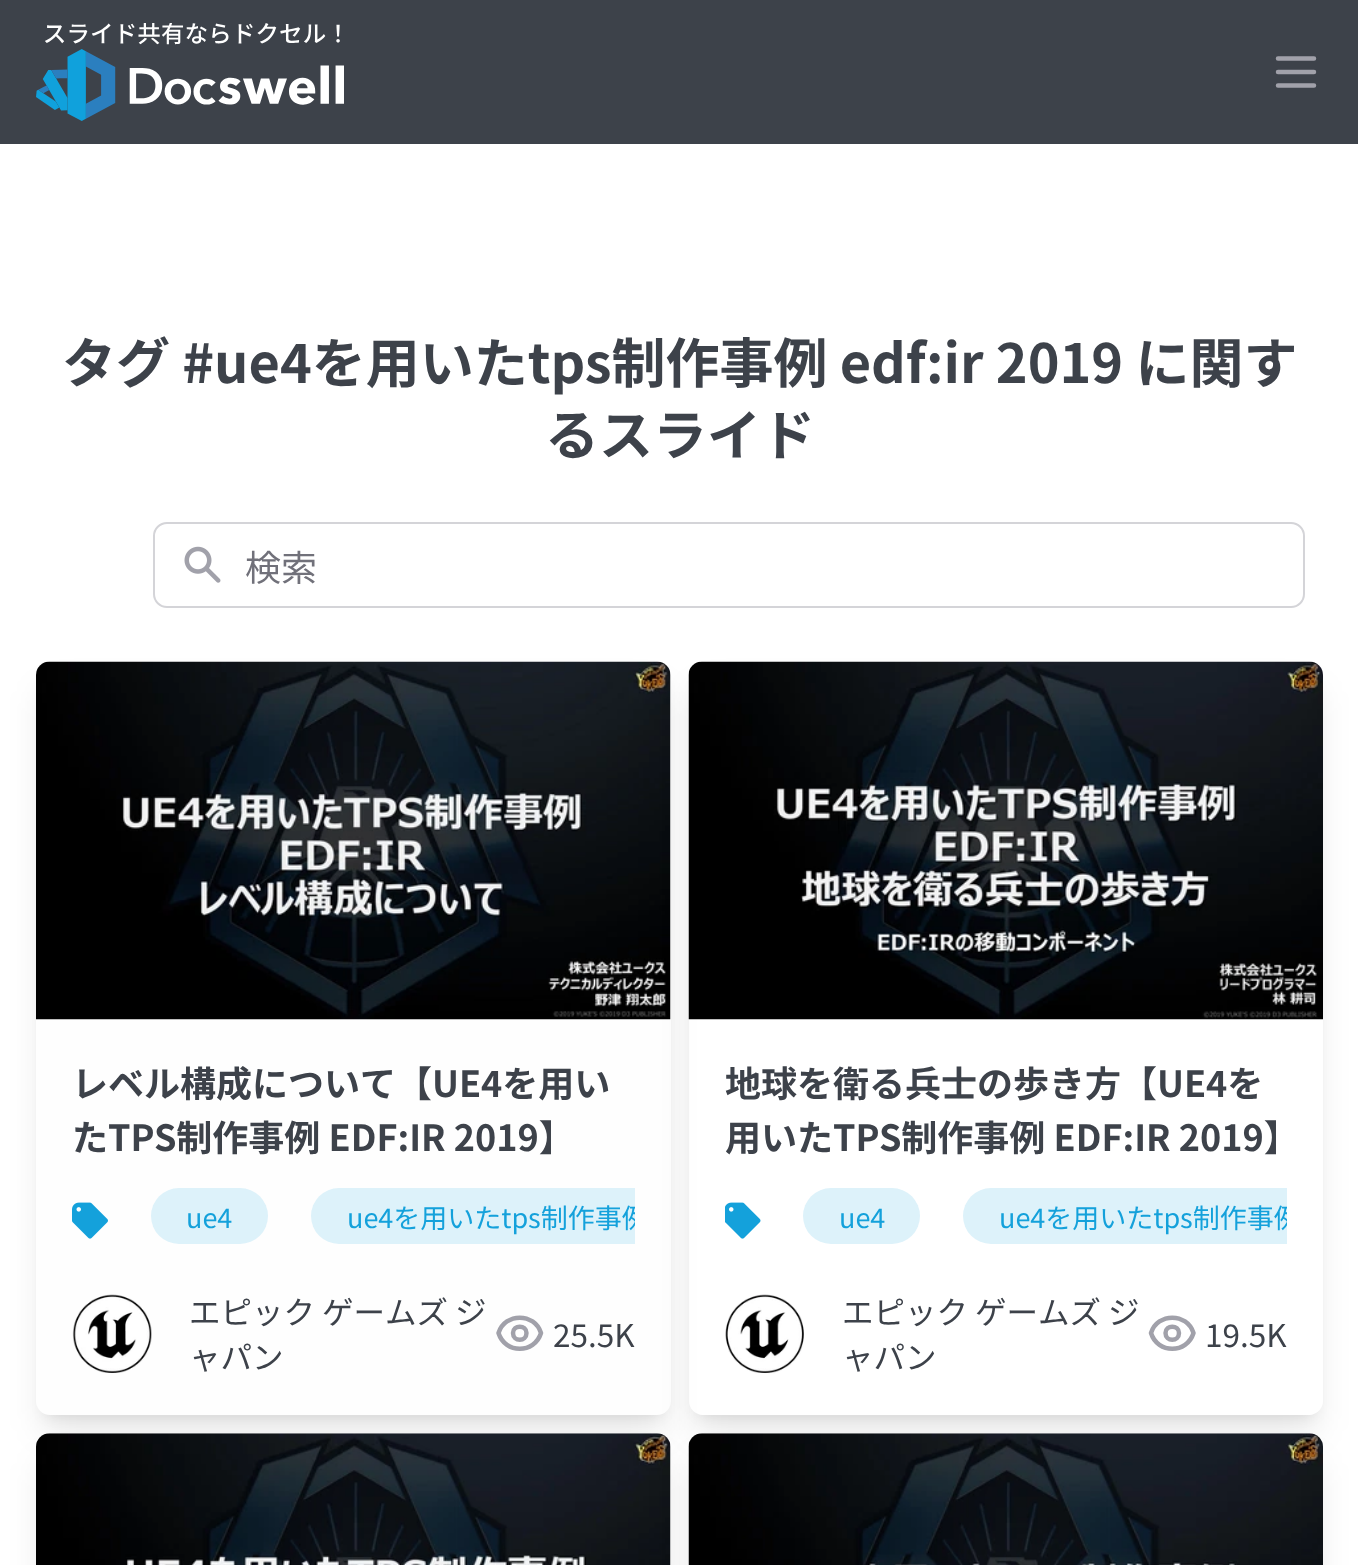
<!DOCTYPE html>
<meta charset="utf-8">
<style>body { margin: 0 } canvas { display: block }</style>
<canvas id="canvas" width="1358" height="1565"></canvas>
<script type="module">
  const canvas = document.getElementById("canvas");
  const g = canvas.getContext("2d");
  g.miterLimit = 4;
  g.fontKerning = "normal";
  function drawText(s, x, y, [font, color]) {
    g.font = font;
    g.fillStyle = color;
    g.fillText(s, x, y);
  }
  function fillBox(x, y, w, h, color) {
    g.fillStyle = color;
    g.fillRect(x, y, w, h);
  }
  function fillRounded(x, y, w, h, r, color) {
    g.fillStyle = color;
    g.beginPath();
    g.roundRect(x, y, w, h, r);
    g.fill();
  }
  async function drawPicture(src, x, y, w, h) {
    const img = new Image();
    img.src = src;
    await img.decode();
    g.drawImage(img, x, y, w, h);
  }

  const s1 = ["bold 54px Noto Sans JP", "#3D424A"];
  const s2 = ["36px Noto Sans JP", "#71717A"];
  const s3 = ["bold 36px Noto Sans JP", "#3D424A"];
  const s4 = ["27px Noto Sans JP", "#14A1DB"];
  const s5 = ["31.5px Noto Sans JP", "#3D424A"];

  fillBox(0, 0, 1358, 1565, "#FFFFFF");
  fillBox(0, 0, 1358, 144, "#3D424A");
  await drawPicture("pic1.png", 36, 23, 308, 98);
  g.beginPath();
  g.moveTo(1278, 58.5);
  g.lineTo(1314, 58.5);
  g.moveTo(1278, 72);
  g.lineTo(1314, 72);
  g.moveTo(1278, 85.5);
  g.lineTo(1314, 85.5);
  g.strokeStyle = "#A1A1AA";
  g.lineWidth = 4.5;
  g.lineCap = "round";
  g.lineJoin = "round";
  g.stroke();
  drawText("タグ #ue4を用いたtps制作事例 edf:ir 2019 に関す", 62, 383, s1);
  drawText("るスライド", 545, 455, s1);
  g.beginPath();
  g.roundRect(154, 523, 1150, 84, 13);
  g.strokeStyle = "#D4D4D8";
  g.lineWidth = 2;
  g.lineJoin = "miter";
  g.stroke();
  await drawPicture("pic2.png", 184, 546, 37, 37);
  drawText("検索", 245, 581, s2);
  g.fillStyle = "rgba(0, 0, 0, 0.1)";
  g.filter = "blur(7px)";
  g.beginPath();
  g.roundRect(45, 680, 617, 735, 5);
  g.fill();
  g.filter = "none";
  g.filter = "blur(17px)";
  g.beginPath();
  g.roundRect(43, 691, 621, 740, 7);
  g.fill();
  g.filter = "none";
  fillRounded(36, 662, 635, 753, 14, "#FEFEFE");
  await drawPicture("pic3.png", 36, 661, 635, 359);
  drawText("レベル構成について【UE4を用い", 72, 1097, s3);
  drawText("たTPS制作事例 EDF:IR 2019】", 72, 1151, s3);
  await drawPicture("pic4.png", 72, 1202, 36, 37);
  fillRounded(151, 1188, 117, 56, 28, "#DDF2FA");
  drawText("ue4", 186, 1228, s4);
  g.fillStyle = "#DDF2FA";
  g.beginPath();
  g.roundRect(311, 1188, 324, 56, [28, 0, 0, 28]);
  g.fill();
  g.save();
  g.beginPath();
  g.rect(72, 1163, 563, 90);
  g.clip();
  drawText("ue4を用いたtps制作事例", 347, 1228, s4);
  g.restore();
  await drawPicture("pic5.png", 72, 1294, 80, 79);
  drawText("エピック ゲームズ ジ", 189, 1324, s5);
  drawText("ャパン", 189, 1369, s5);
  g.beginPath();
  g.moveTo(526.5, 1333);
  g.bezierCurveTo(526.5, 1342, 513, 1342, 513, 1333);
  g.bezierCurveTo(513, 1324.5, 526.5, 1324.5, 526.5, 1333);
  g.closePath();
  g.moveTo(498.5, 1333);
  g.bezierCurveTo(505, 1312.5, 534.5, 1312.5, 541, 1333);
  g.bezierCurveTo(534.5, 1354, 505, 1354, 498.5, 1333);
  g.closePath();
  g.strokeStyle = "#A1A1AA";
  g.lineWidth = 4.5;
  g.lineJoin = "round";
  g.stroke();
  drawText("25.5K", 553, 1347, s5);
  g.save();
  g.beginPath();
  g.moveTo(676, 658);
  g.lineTo(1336, 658);
  g.lineTo(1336, 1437);
  g.lineTo(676, 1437);
  g.closePath();
  g.moveTo(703, 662);
  g.lineTo(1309, 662);
  g.bezierCurveTo(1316.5, 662, 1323, 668.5, 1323, 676);
  g.lineTo(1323, 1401);
  g.bezierCurveTo(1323, 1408.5, 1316.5, 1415, 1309, 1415);
  g.lineTo(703, 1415);
  g.bezierCurveTo(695.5, 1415, 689, 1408.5, 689, 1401);
  g.lineTo(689, 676);
  g.bezierCurveTo(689, 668.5, 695.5, 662, 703, 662);
  g.closePath();
  g.clip("evenodd");
  g.fillStyle = "rgba(0, 0, 0, 0.1)";
  g.filter = "blur(7px)";
  g.beginPath();
  g.roundRect(698, 680, 616, 735, 5);
  g.fill();
  g.filter = "none";
  g.restore();
  g.save();
  g.beginPath();
  g.moveTo(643, 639);
  g.lineTo(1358, 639);
  g.lineTo(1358, 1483);
  g.lineTo(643, 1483);
  g.closePath();
  g.moveTo(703, 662);
  g.lineTo(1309, 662);
  g.bezierCurveTo(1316.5, 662, 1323, 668.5, 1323, 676);
  g.lineTo(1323, 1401);
  g.bezierCurveTo(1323, 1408.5, 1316.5, 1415, 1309, 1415);
  g.lineTo(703, 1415);
  g.bezierCurveTo(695.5, 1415, 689, 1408.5, 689, 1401);
  g.lineTo(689, 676);
  g.bezierCurveTo(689, 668.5, 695.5, 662, 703, 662);
  g.closePath();
  g.clip("evenodd");
  g.fillStyle = "rgba(0, 0, 0, 0.1)";
  g.filter = "blur(17px)";
  g.beginPath();
  g.roundRect(695, 691, 621, 740, 7);
  g.fill();
  g.filter = "none";
  g.restore();
  await drawPicture("pic6.png", 688, 661, 635, 359);
  drawText("地球を衛る兵士の歩き方【UE4を", 725, 1097, s3);
  drawText("用いたTPS制作事例 EDF:IR 2019】", 725, 1151, s3);
  await drawPicture("pic7.png", 725, 1202, 36, 37);
  fillRounded(803, 1188, 117, 56, 28, "#DDF2FA");
  drawText("ue4", 839, 1228, s4);
  g.fillStyle = "#DDF2FA";
  g.beginPath();
  g.roundRect(963, 1188, 324, 56, [28, 0, 0, 28]);
  g.fill();
  g.save();
  g.beginPath();
  g.rect(725, 1163, 562, 90);
  g.clip();
  drawText("ue4を用いたtps制作事例", 999, 1228, s4);
  g.restore();
  await drawPicture("pic8.png", 725, 1294, 79, 80);
  drawText("エピック ゲームズ ジ", 842, 1324, s5);
  drawText("ャパン", 842, 1369, s5);
  g.beginPath();
  g.moveTo(1179, 1333);
  g.bezierCurveTo(1179, 1342, 1165.5, 1342, 1165.5, 1333);
  g.bezierCurveTo(1165.5, 1324.5, 1179, 1324.5, 1179, 1333);
  g.closePath();
  g.moveTo(1151, 1333);
  g.bezierCurveTo(1157.5, 1312.5, 1187, 1312.5, 1193.5, 1333);
  g.bezierCurveTo(1187, 1354, 1157.5, 1354, 1151, 1333);
  g.closePath();
  g.stroke();
  drawText("19.5K", 1205, 1347, s5);
  g.fillStyle = "rgba(0, 0, 0, 0.1)";
  g.filter = "blur(17px)";
  g.beginPath();
  g.roundRect(43, 1463, 621, 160, 7);
  g.fill();
  g.filter = "none";
  fillRounded(36, 1433, 635, 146, 14, "#FEFEFE");
  await drawPicture("pic9.png", 36, 1433, 635, 132);
  g.fillStyle = "rgba(0, 0, 0, 0.1)";
  g.filter = "blur(17px)";
  g.beginPath();
  g.roundRect(695, 1463, 621, 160, 7);
  g.fill();
  g.filter = "none";
  fillRounded(689, 1433, 634, 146, 14, "#FEFEFE");
  await drawPicture("pic10.png", 688, 1433, 635, 132);
</script>
